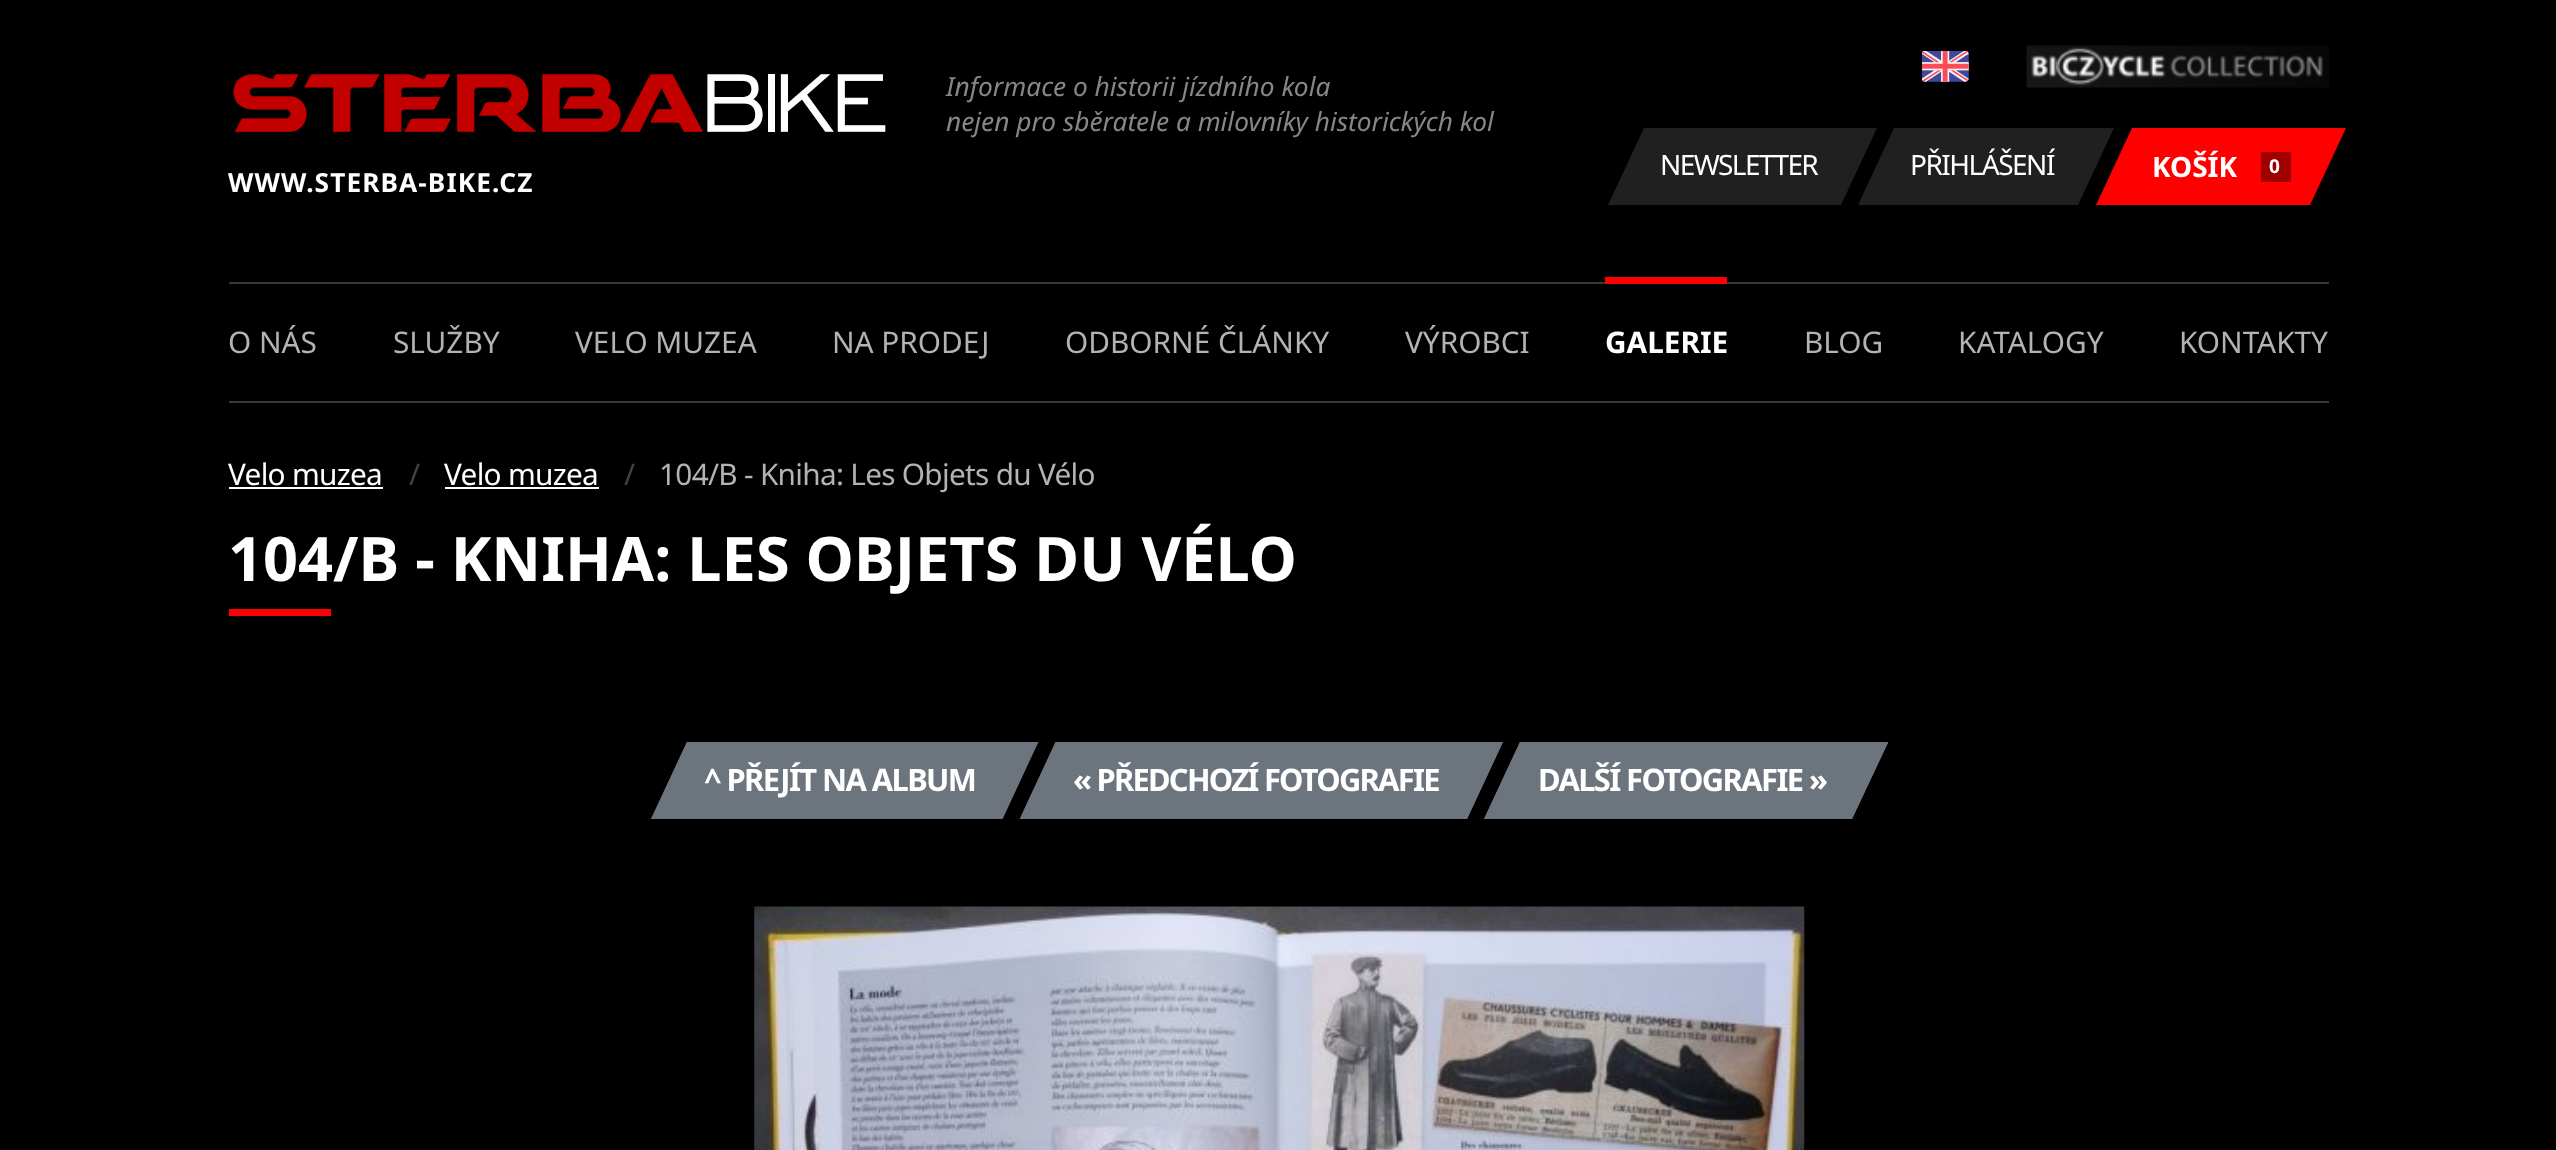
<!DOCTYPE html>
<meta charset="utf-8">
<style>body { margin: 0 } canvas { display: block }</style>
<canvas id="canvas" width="2556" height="1150"></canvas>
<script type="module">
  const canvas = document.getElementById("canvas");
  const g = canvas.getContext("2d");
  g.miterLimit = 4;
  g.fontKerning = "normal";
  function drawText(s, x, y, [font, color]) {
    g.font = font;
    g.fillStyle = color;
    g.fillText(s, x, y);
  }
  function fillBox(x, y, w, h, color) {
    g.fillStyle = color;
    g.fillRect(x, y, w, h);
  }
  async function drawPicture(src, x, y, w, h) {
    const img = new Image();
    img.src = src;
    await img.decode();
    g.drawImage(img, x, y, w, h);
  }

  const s1 = ["italic 26.25px Noto Sans", "#878787"];
  const s2 = ["bold 26.25px Noto Sans", "#FFFFFF"];
  const s3 = ["28px Noto Sans", "#FFFFFF"];
  const s4 = ["bold 28px Noto Sans", "#FFFFFF"];
  const s5 = ["bold 19px Noto Sans", "#FFFFFF"];
  const s6 = ["29.75px Noto Sans", "#B3B3B3"];
  const s7 = ["bold 29.75px Noto Sans", "#FFFFFF"];
  const s8 = ["29.75px Noto Sans", "#FFFFFF"];
  const s9 = ["29.75px Noto Sans", "#434343"];
  const s10 = ["bold 61.25px Noto Sans", "#FFFFFF"];
  const s11 = ["bold 30.9px Noto Sans", "#FFFFFF"];

  fillBox(0, 0, 2556, 1150, "#000000");
  drawText("Informace o historii jízdního kola", 946, 96, s1);
  drawText("nejen pro sběratele a milovníky historických kol", 946, 131, s1);
  await drawPicture("pic1.png", 233, 74, 653, 58);
  g.letterSpacing = "1.1px";
  drawText("WWW.STERBA-BIKE.CZ", 228, 192, s2);
  await drawPicture("pic2.png", 1922, 51, 47, 31);
  await drawPicture("pic3.png", 2026, 45, 303, 43);
  g.fillStyle = "#202020";
  g.beginPath();
  g.moveTo(1644, 128);
  g.lineTo(1877, 128);
  g.lineTo(1841, 205);
  g.lineTo(1608, 205);
  g.closePath();
  g.fill();
  g.letterSpacing = "-1.6px";
  drawText("NEWSLETTER", 1660, 175, s3);
  g.fillStyle = "#202020";
  g.beginPath();
  g.moveTo(1894, 128);
  g.lineTo(2114, 128);
  g.lineTo(2078, 205);
  g.lineTo(1858, 205);
  g.closePath();
  g.fill();
  g.letterSpacing = "-1.5px";
  drawText("PŘIHLÁŠENÍ", 1910, 175, s3);
  g.fillStyle = "#FF0000";
  g.beginPath();
  g.moveTo(2132, 128);
  g.lineTo(2346, 128);
  g.lineTo(2310, 205);
  g.lineTo(2096, 205);
  g.closePath();
  g.fill();
  g.letterSpacing = "0px";
  drawText("KOŠÍK", 2152, 177, s4);
  fillBox(2261, 152, 30, 30, "#9E0000");
  drawText("0", 2269, 173, s5);
  fillBox(229, 282, 2100, 2, "#373737");
  fillBox(229, 401, 2100, 2, "#373737");
  drawText("O NÁS", 228, 353, s6);
  drawText("SLUŽBY", 393, 353, s6);
  drawText("VELO MUZEA", 575, 353, s6);
  drawText("NA PRODEJ", 832, 353, s6);
  drawText("ODBORNÉ ČLÁNKY", 1065, 353, s6);
  drawText("VÝROBCI", 1405, 353, s6);
  fillBox(1605, 277, 122, 7, "#FF0000");
  drawText("GALERIE", 1605, 353, s7);
  drawText("BLOG", 1804, 353, s6);
  drawText("KATALOGY", 1958, 353, s6);
  drawText("KONTAKTY", 2179, 353, s6);
  g.letterSpacing = "-0.7px";
  drawText("Velo muzea", 228, 485, s8);
  fillBox(229, 487, 154, 2, "#FFFFFF");
  drawText("/", 409, 485, s9);
  drawText("Velo muzea", 444, 485, s8);
  fillBox(445, 487, 154, 2, "#FFFFFF");
  drawText("/", 624, 485, s9);
  drawText("104/B - Kniha: Les Objets du Vélo", 659, 485, s6);
  g.letterSpacing = "0px";
  drawText("104/B - KNIHA: LES OBJETS DU VÉLO", 228, 581, s10);
  fillBox(229, 609, 102, 7, "#FF0000");
  g.fillStyle = "#6C757D";
  g.beginPath();
  g.moveTo(687, 742);
  g.lineTo(1038, 742);
  g.lineTo(1002, 819);
  g.lineTo(651, 819);
  g.closePath();
  g.fill();
  g.beginPath();
  g.moveTo(687.5, 743);
  g.lineTo(1037, 743);
  g.lineTo(1002, 818);
  g.lineTo(652.5, 818);
  g.closePath();
  g.strokeStyle = "#6C757D";
  g.lineWidth = 1.8;
  g.stroke();
  g.letterSpacing = "-1.6px";
  drawText("^ PŘEJÍT NA ALBUM", 704, 791, s11);
  g.fillStyle = "#6C757D";
  g.beginPath();
  g.moveTo(1056, 742);
  g.lineTo(1503, 742);
  g.lineTo(1467, 819);
  g.lineTo(1020, 819);
  g.closePath();
  g.fill();
  g.beginPath();
  g.moveTo(1056, 743);
  g.lineTo(1501.5, 743);
  g.lineTo(1466.5, 818);
  g.lineTo(1021, 818);
  g.closePath();
  g.stroke();
  g.letterSpacing = "-1.75px";
  drawText("« PŘEDCHOZÍ FOTOGRAFIE", 1073, 791, s11);
  g.fillStyle = "#6C757D";
  g.beginPath();
  g.moveTo(1520, 742);
  g.lineTo(1888, 742);
  g.lineTo(1852, 819);
  g.lineTo(1484, 819);
  g.closePath();
  g.fill();
  g.beginPath();
  g.moveTo(1520.5, 743);
  g.lineTo(1887, 743);
  g.lineTo(1851.5, 818);
  g.lineTo(1485.5, 818);
  g.closePath();
  g.stroke();
  g.letterSpacing = "-1.6px";
  drawText("DALŠÍ FOTOGRAFIE »", 1538, 791, s11);
  await drawPicture("pic4.png", 754, 906, 1051, 244);
</script>
